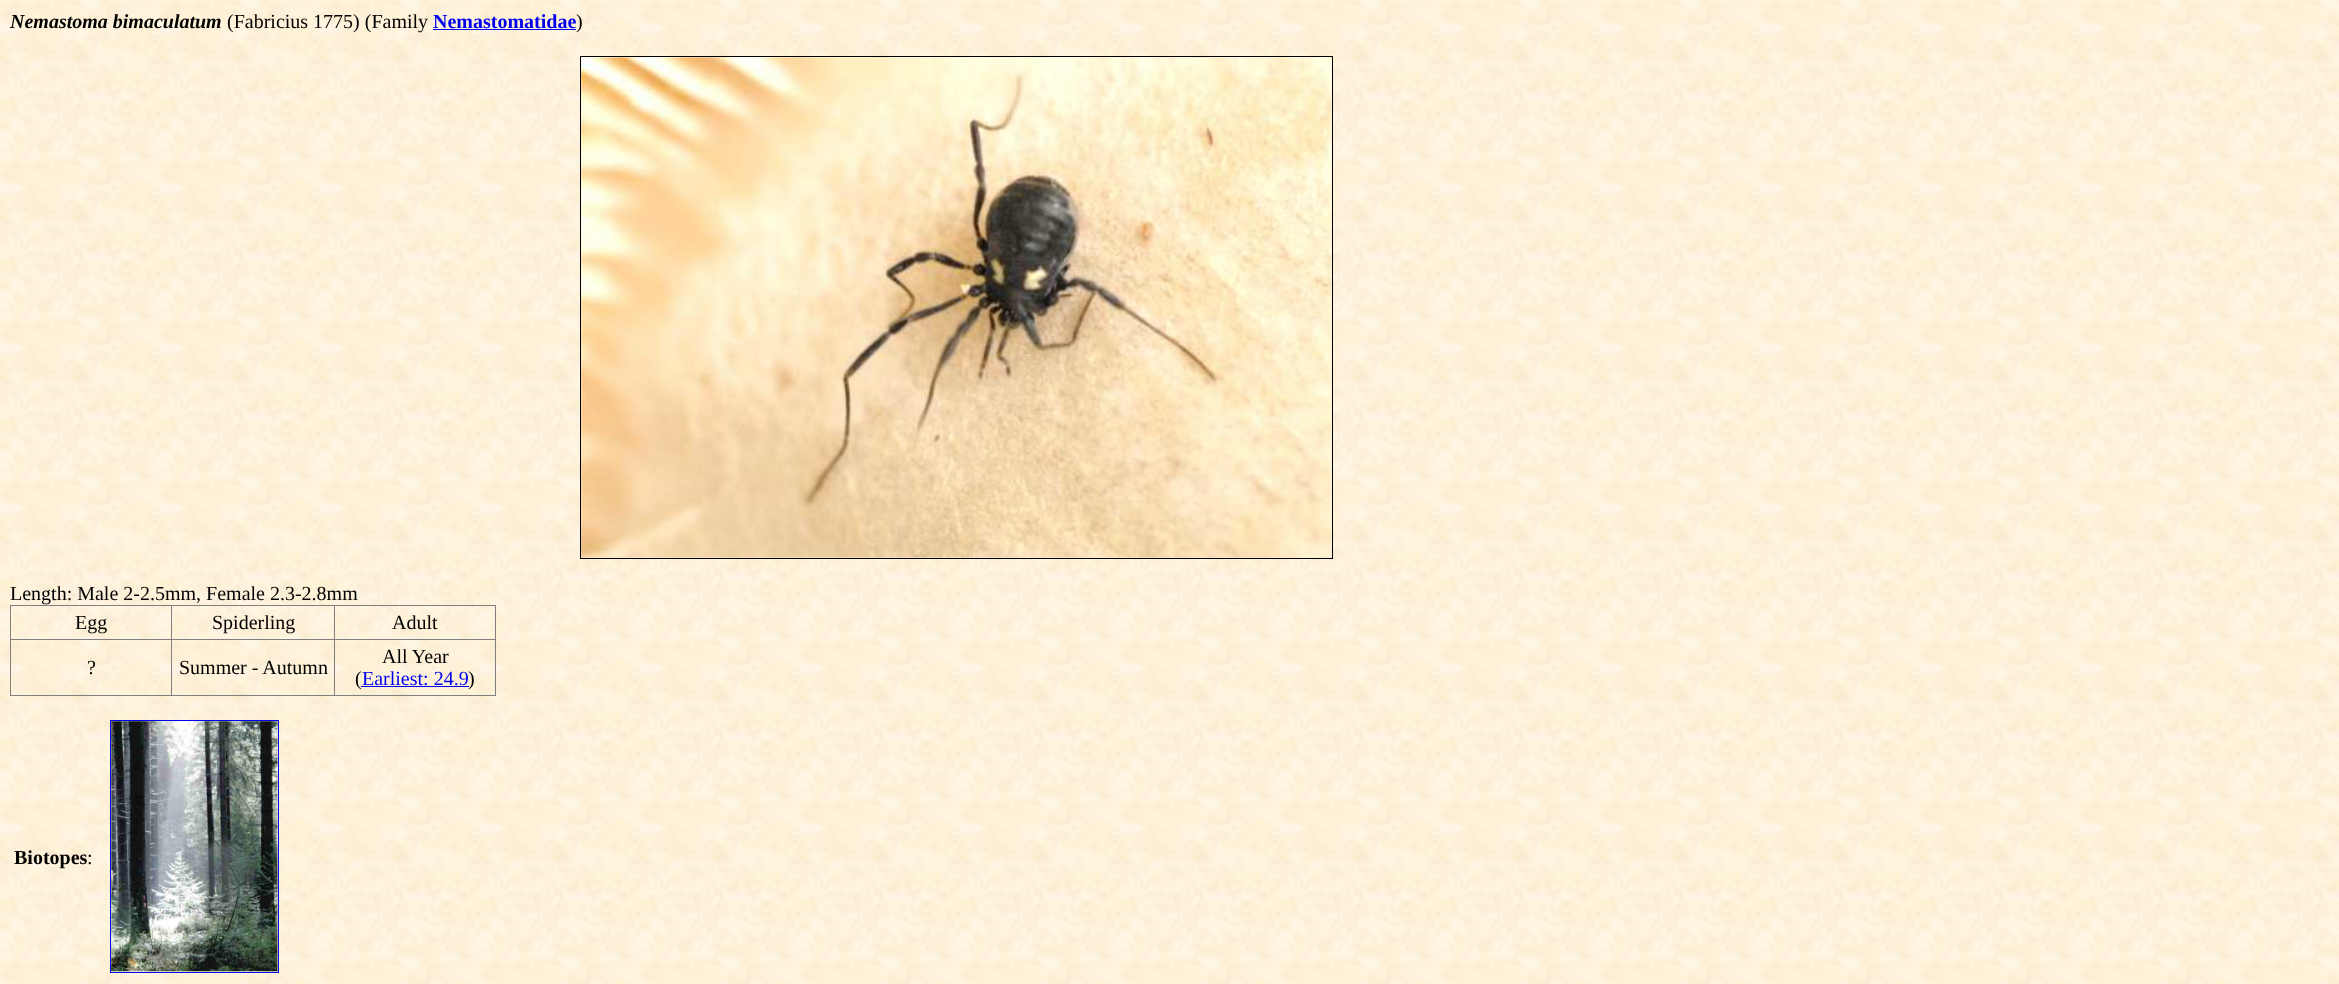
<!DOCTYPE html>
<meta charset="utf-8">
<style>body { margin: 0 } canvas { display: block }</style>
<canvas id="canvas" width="2339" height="984"></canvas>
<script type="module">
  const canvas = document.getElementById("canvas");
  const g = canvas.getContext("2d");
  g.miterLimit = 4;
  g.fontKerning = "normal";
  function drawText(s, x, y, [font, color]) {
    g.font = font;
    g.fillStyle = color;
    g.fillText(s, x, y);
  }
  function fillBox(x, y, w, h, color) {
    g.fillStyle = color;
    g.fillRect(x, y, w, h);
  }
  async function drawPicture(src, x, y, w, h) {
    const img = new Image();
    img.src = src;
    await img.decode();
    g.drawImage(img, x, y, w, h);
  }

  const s1 = ["italic bold 20px Liberation Serif", "#000000"];
  const s2 = ["20px Liberation Serif", "#000000"];
  const s3 = ["bold 20px Liberation Serif", "#0000EE"];
  const s4 = ["20px Liberation Serif", "#0000EE"];
  const s5 = ["bold 20px Liberation Serif", "#000000"];

  fillBox(0, 0, 2339, 984, "#FFFFFF");
  await drawPicture("pic1.png", 0, 0, 2339, 984);
  drawText("Nemastoma bimaculatum", 10, 28, s1);
  drawText("(Fabricius 1775) (Family", 227, 28, s2);
  drawText("Nemastomatidae", 433, 28, s3);
  fillBox(433, 29, 143, 1, "#0000EE");
  drawText(")", 576, 28, s2);
  g.strokeStyle = "#000000";
  g.strokeRect(580.5, 56.5, 752, 502);
  await drawPicture("pic2.png", 581, 57, 751, 501);
  drawText("Length: Male 2-2.5mm, Female 2.3-2.8mm", 10, 600, s2);
  fillBox(10, 605, 486, 1, "#808080");
  fillBox(495, 605, 1, 91, "#808080");
  fillBox(10, 695, 486, 1, "#808080");
  fillBox(10, 605, 1, 91, "#808080");
  drawText("Egg", 75, 629, s2);
  fillBox(334, 639, 162, 1, "#808080");
  fillBox(334, 639, 1, 57, "#808080");
  fillBox(171, 639, 164, 1, "#808080");
  fillBox(171, 639, 1, 57, "#808080");
  fillBox(10, 639, 163, 1, "#808080");
  fillBox(171, 605, 1, 35, "#808080");
  drawText("Spiderling", 212, 629, s2);
  fillBox(334, 605, 1, 35, "#808080");
  drawText("Adult", 392, 629, s2);
  drawText("?", 87, 674, s2);
  drawText("Summer - Autumn", 179, 674, s2);
  drawText("All Year", 382, 663, s2);
  drawText("(", 355, 685, s2);
  drawText("Earliest: 24.9", 362, 685, s4);
  fillBox(361, 686, 108, 1, "#0000EE");
  drawText(")", 468, 685, s2);
  drawText("Biotopes", 14, 864, s5);
  drawText(":", 87, 864, s2);
  g.strokeStyle = "#0000EE";
  g.strokeRect(110.5, 720.5, 168, 252);
  await drawPicture("pic3.png", 111, 721, 167, 251);
</script>
